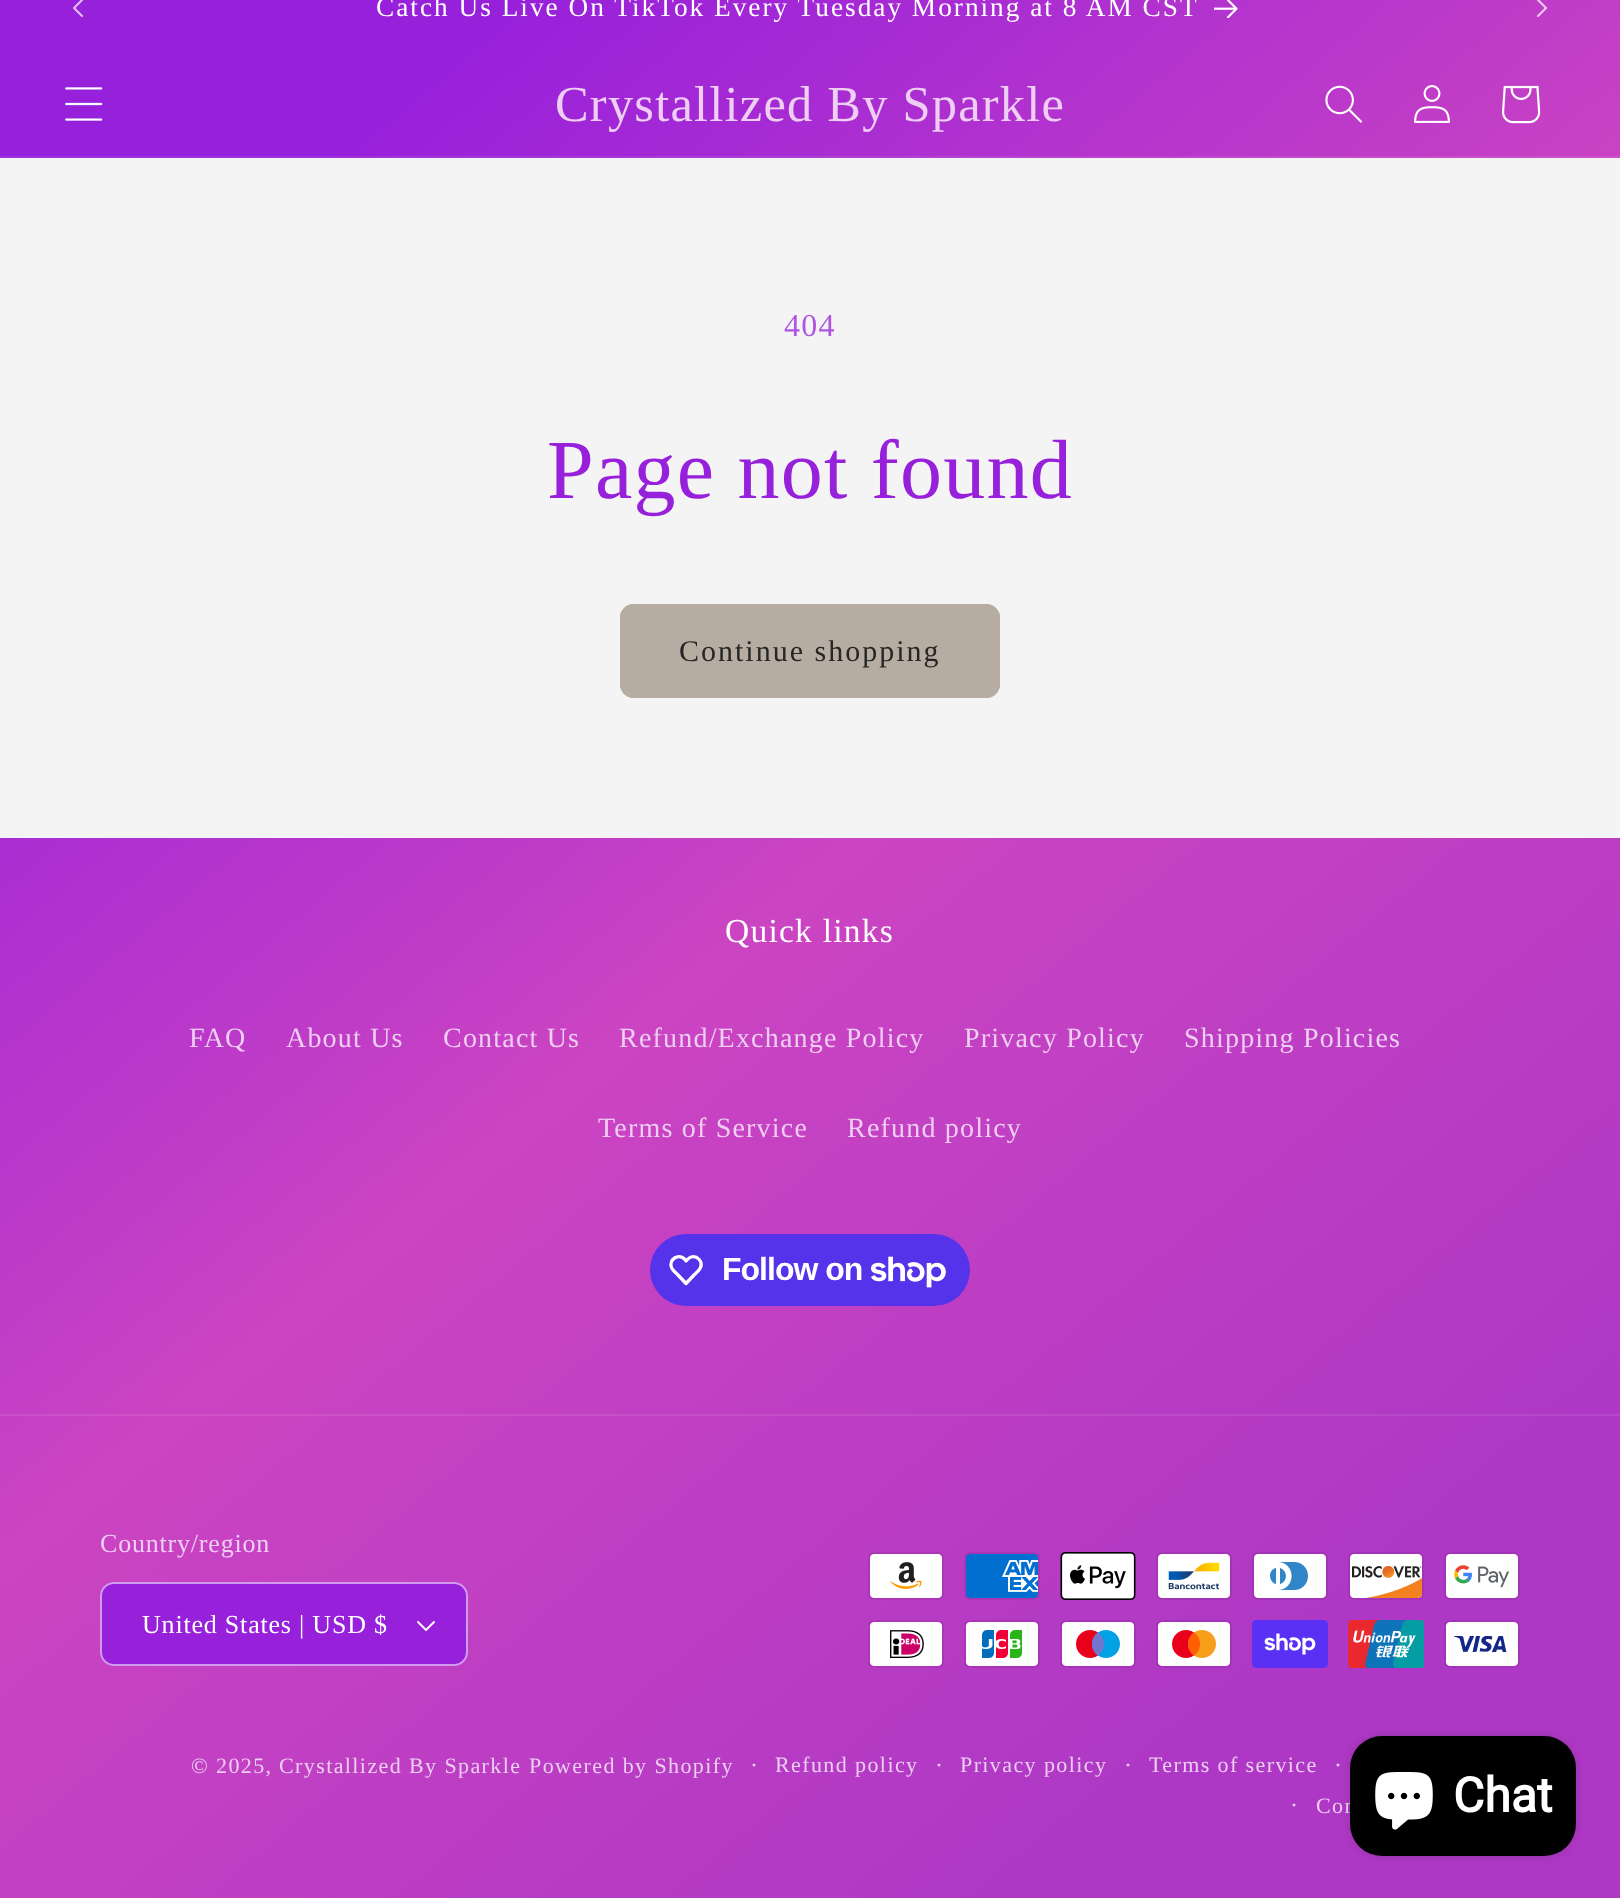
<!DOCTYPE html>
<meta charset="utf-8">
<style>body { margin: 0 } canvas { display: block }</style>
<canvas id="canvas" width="1620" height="1898"></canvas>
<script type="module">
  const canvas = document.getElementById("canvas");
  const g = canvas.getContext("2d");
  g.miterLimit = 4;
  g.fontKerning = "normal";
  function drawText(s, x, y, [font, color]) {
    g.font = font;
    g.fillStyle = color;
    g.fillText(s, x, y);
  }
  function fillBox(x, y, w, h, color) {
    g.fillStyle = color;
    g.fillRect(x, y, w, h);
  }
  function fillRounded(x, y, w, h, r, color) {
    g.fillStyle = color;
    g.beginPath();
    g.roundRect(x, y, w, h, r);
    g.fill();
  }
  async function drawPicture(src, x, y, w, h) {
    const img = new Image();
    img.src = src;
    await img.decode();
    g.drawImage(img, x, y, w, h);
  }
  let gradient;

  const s1 = ["27.3px Liberation Serif", "#FFFFFF"];
  const s2 = ["50.4px Liberation Serif", "#EECEF2"];
  const s3 = ["32px Liberation Serif", "#AE55E1"];
  const s4 = ["84px Liberation Serif", "#9720DB"];
  const s5 = ["30px Liberation Serif", "#262626"];
  const s6 = ["33.5px Liberation Serif", "#FFFFFF"];
  const s7 = ["28px Liberation Serif", "#EECEF2"];
  const s8 = ["bold 32px Liberation Sans", "#FFFFFF"];
  const s9 = ["26px Liberation Serif", "#EECEF2"];
  const s10 = ["26px Liberation Serif", "#FFFFFF"];
  const s11 = ["22px Liberation Serif", "#EECEF2"];
  const s12 = ["24px Liberation Serif", "#EECEF2"];
  const s13 = ["bold 48px Roboto", "#FFFFFF"];

  fillBox(0, 0, 1620, 1898, "#F4F4F4");
  gradient = g.createLinearGradient(1612, 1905, 8, -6.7);
  gradient.addColorStop(0.16, "#AE38C5");
  gradient.addColorStop(0.52, "#CB44C2");
  gradient.addColorStop(0.87, "#9720DB");
  g.fillStyle = gradient;
  g.fillRect(0, 0, 1620, 52);
  await drawPicture("pic1.png", 73, 0, 10, 17);
  g.letterSpacing = "2px";
  drawText("Catch Us Live On TikTok Every Tuesday Morning at 8 AM CST", 376, 16, s1);
  await drawPicture("pic2.png", 1214, 0, 24, 18);
  await drawPicture("pic3.png", 1537, 0, 10, 17);
  gradient = g.createLinearGradient(1612, 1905, 8, -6.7);
  gradient.addColorStop(0.16, "#AE38C5");
  gradient.addColorStop(0.52, "#CB44C2");
  gradient.addColorStop(0.87, "#9720DB");
  g.fillStyle = gradient;
  g.fillRect(0, 52, 1620, 104);
  gradient = g.createLinearGradient(1612, 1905, 8, -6.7);
  gradient.addColorStop(0.16, "#B448CA");
  gradient.addColorStop(0.52, "#CF53C7");
  gradient.addColorStop(0.87, "#9F32DE");
  g.fillStyle = gradient;
  g.fillRect(0, 156, 1620, 2);
  await drawPicture("pic4.png", 65, 87, 38, 34);
  g.letterSpacing = "1.25px";
  drawText("Crystallized By Sparkle", 555, 121, s2);
  await drawPicture("pic5.png", 1325, 85, 37, 38);
  await drawPicture("pic6.png", 1414, 85, 36, 38);
  await drawPicture("pic7.png", 1502, 85, 39, 39);
  g.letterSpacing = "1.2px";
  drawText("404", 784, 336, s3);
  g.letterSpacing = "1.25px";
  drawText("Page not found", 547, 498, s4);
  fillRounded(620, 604, 380, 94, 14, "#B7ACA2");
  g.beginPath();
  g.roundRect(621, 605, 378, 92, 13);
  g.strokeStyle = "#B7ACA2";
  g.lineWidth = 2;
  g.stroke();
  g.letterSpacing = "2px";
  drawText("Continue shopping", 679, 661, s5);
  gradient = g.createLinearGradient(1612, 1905, 8, -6.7);
  gradient.addColorStop(0.16, "#AE38C5");
  gradient.addColorStop(0.52, "#CB44C2");
  gradient.addColorStop(0.87, "#9720DB");
  g.fillStyle = gradient;
  g.fillRect(0, 838, 1620, 1060);
  gradient = g.createLinearGradient(1612, 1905, 8, -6.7);
  gradient.addColorStop(0.16, "#B448CA");
  gradient.addColorStop(0.52, "#CF53C7");
  gradient.addColorStop(0.87, "#9F32DE");
  g.fillStyle = gradient;
  g.fillRect(0, 1414, 1620, 2);
  g.letterSpacing = "1.25px";
  drawText("Quick links", 725, 942, s6);
  g.letterSpacing = "1.2px";
  drawText("FAQ", 189, 1047, s7);
  drawText("About Us", 286, 1047, s7);
  drawText("Contact Us", 443, 1047, s7);
  drawText("Refund/Exchange Policy", 619, 1047, s7);
  drawText("Privacy Policy", 964, 1047, s7);
  drawText("Shipping Policies", 1184, 1047, s7);
  drawText("Terms of Service", 598, 1137, s7);
  drawText("Refund policy", 847, 1137, s7);
  fillRounded(650, 1234, 320, 72, 36, "#5433EB");
  g.beginPath();
  g.moveTo(684.5, 1259);
  g.lineTo(686, 1261);
  g.bezierCurveTo(687.5, 1259.5, 689, 1257.5, 691, 1257);
  g.bezierCurveTo(697, 1255, 703, 1261.5, 700.5, 1267.5);
  g.bezierCurveTo(699.5, 1270.5, 696.5, 1272.5, 694.5, 1274.5);
  g.lineTo(686, 1283.5);
  g.lineTo(677.5, 1274.5);
  g.bezierCurveTo(675.5, 1272.5, 672.5, 1270.5, 671.5, 1267.5);
  g.bezierCurveTo(668.5, 1259.5, 678.5, 1253, 684.5, 1259);
  g.closePath();
  g.strokeStyle = "#FFFFFF";
  g.lineWidth = 3.3;
  g.lineJoin = "round";
  g.stroke();
  g.letterSpacing = "-1px";
  drawText("Follow on", 722, 1280, s8);
  await drawPicture("pic8.png", 871, 1256, 75, 32);
  g.letterSpacing = "0.8px";
  drawText("Country/region", 100, 1552, s9);
  fillRounded(100, 1582, 368, 84, 14, "#9720DB");
  await drawPicture("pic9.png", 417, 1621, 18, 10);
  g.beginPath();
  g.roundRect(101, 1583, 366, 82, 13);
  g.strokeStyle = "rgba(255, 255, 255, 0.55)";
  g.lineWidth = 2;
  g.lineJoin = "miter";
  g.stroke();
  drawText("United States | USD $", 142, 1633, s10);
  await drawPicture("pic10.png", 868, 1552, 76, 48);
  await drawPicture("pic11.png", 964, 1552, 76, 48);
  await drawPicture("pic12.png", 1060, 1552, 76, 48);
  await drawPicture("pic13.png", 1156, 1552, 76, 48);
  await drawPicture("pic14.png", 1252, 1552, 76, 48);
  await drawPicture("pic15.png", 1348, 1552, 76, 48);
  await drawPicture("pic16.png", 1444, 1552, 76, 48);
  await drawPicture("pic17.png", 868, 1620, 76, 48);
  await drawPicture("pic18.png", 964, 1620, 76, 48);
  await drawPicture("pic19.png", 1060, 1620, 76, 48);
  await drawPicture("pic20.png", 1156, 1620, 76, 48);
  await drawPicture("pic21.png", 1252, 1620, 76, 48);
  await drawPicture("pic22.png", 1348, 1620, 76, 48);
  await drawPicture("pic23.png", 1444, 1620, 76, 48);
  g.letterSpacing = "1.4px";
  drawText("© 2025,", 191, 1773, s11);
  drawText("Crystallized By Sparkle", 279, 1773, s11);
  drawText("Powered by Shopify", 529, 1773, s11);
  drawText("·", 750, 1773, s12);
  drawText("Refund policy", 775, 1772, s11);
  drawText("·", 935, 1773, s12);
  drawText("Privacy policy", 960, 1772, s11);
  drawText("·", 1124, 1773, s12);
  drawText("Terms of service", 1149, 1772, s11);
  drawText("·", 1334, 1773, s12);
  drawText("·", 1290, 1813, s12);
  drawText("Con", 1316, 1813, s11);
  g.fillStyle = "rgba(0, 0, 0, 0.15)";
  g.filter = "blur(5px)";
  g.beginPath();
  g.roundRect(1350, 1736, 226, 120, 32);
  g.fill();
  g.filter = "none";
  fillRounded(1350, 1736, 226, 120, 32, "#000000");
  await drawPicture("pic24.png", 1375, 1772, 58, 58);
  g.letterSpacing = "0px";
  drawText("Chat", 1453, 1812, s13);
</script>
